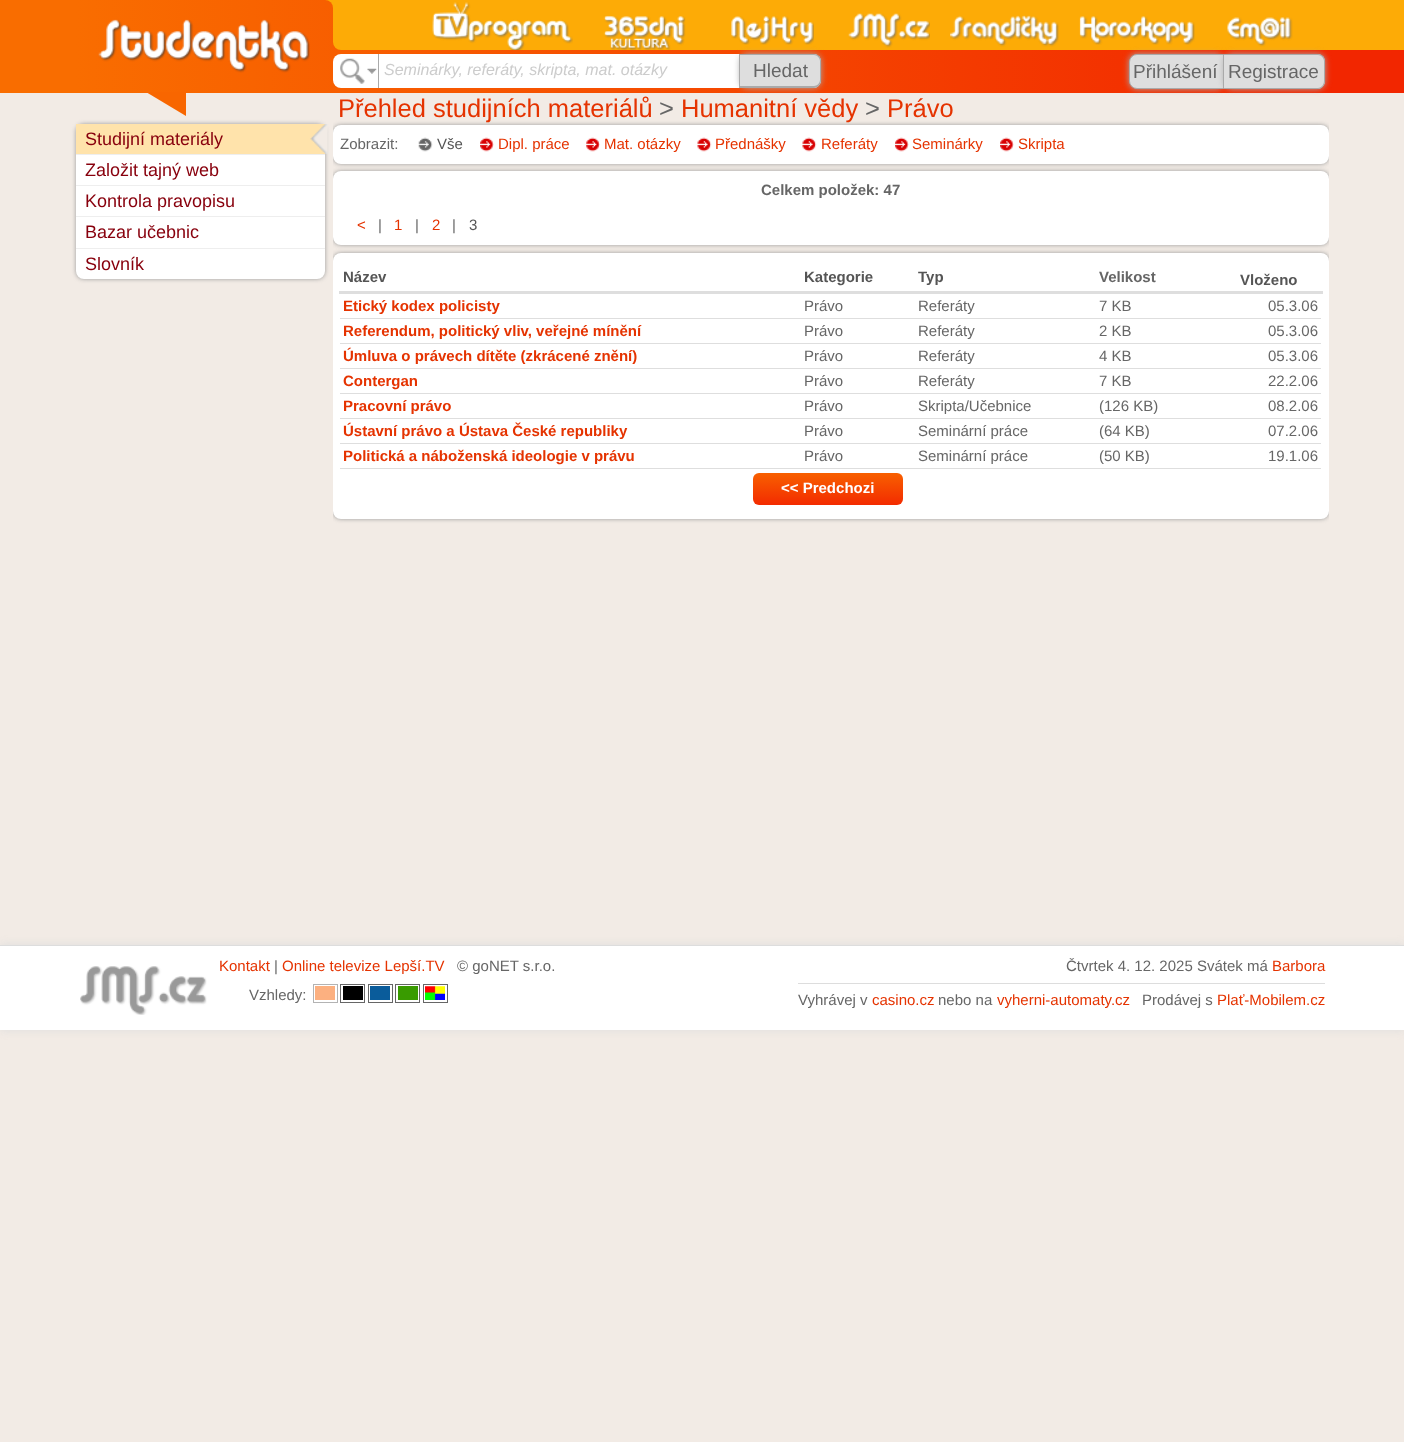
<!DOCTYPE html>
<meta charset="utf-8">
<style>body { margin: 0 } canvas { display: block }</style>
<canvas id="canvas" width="1404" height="1442"></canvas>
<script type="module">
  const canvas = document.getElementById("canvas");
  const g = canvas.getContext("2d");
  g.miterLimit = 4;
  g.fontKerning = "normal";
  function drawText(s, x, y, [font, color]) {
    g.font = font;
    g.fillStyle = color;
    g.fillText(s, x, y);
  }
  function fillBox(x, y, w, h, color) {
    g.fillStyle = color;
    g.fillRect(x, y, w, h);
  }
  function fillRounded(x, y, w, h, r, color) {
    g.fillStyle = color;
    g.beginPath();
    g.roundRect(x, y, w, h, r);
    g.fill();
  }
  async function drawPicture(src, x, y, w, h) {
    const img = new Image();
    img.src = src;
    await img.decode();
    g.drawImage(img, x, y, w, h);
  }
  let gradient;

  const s1 = ["italic 16px Liberation Sans", "#CCCCCC"];
  const s2 = ["19px Liberation Sans", "#666666"];
  const s3 = ["18px Liberation Sans", "#88000D"];
  const s4 = ["25.5px Liberation Sans", "#E53300"];
  const s5 = ["25.5px Liberation Sans", "#666666"];
  const s6 = ["15px Liberation Sans", "#666666"];
  const s7 = ["15px Liberation Sans", "#555555"];
  const s8 = ["15px Liberation Sans", "#E53300"];
  const s9 = ["bold 15px Liberation Sans", "#666666"];
  const s10 = ["bold 15px Liberation Sans", "#555555"];
  const s11 = ["bold 15px Liberation Sans", "#E53300"];
  const s12 = ["bold 15px Liberation Sans", "#FFFFFF"];

  fillBox(0, 0, 1404, 1442, "#F2EBE5");
  fillBox(0, 0, 76, 93, "#F96D00");
  fillBox(1329, 0, 75, 50, "#FDAB06");
  fillBox(1329, 50, 75, 43, "#F22600");
  gradient = g.createLinearGradient(76, 46, 1329, 46);
  gradient.addColorStop(0, "#F96D00");
  gradient.addColorStop(1, "#F22600");
  g.fillStyle = gradient;
  g.fillRect(76, 0, 1253, 93);
  fillBox(325, 0, 8, 8, "#FDAB06");
  g.fillStyle = "#F75F00";
  g.beginPath();
  g.roundRect(325, 0, 8, 8, [0, 8, 0, 0]);
  g.fill();
  await drawPicture("pic1.png", 98, 19, 212, 54);
  g.fillStyle = "#FDAB06";
  g.beginPath();
  g.roundRect(333, 0, 996, 50, [0, 0, 0, 8]);
  g.fill();
  await drawPicture("pic2.png", 432, 2, 141, 48);
  await drawPicture("pic3.png", 603, 15, 83, 35);
  await drawPicture("pic4.png", 731, 16, 83, 29);
  await drawPicture("pic5.png", 848, 13, 82, 35);
  await drawPicture("pic6.png", 950, 15, 109, 32);
  await drawPicture("pic7.png", 1079, 16, 116, 29);
  await drawPicture("pic8.png", 1227, 17, 66, 30);
  fillRounded(333, 54, 488, 34, 8, "#FFFFFF");
  await drawPicture("pic9.png", 367, 68, 10, 6);
  await drawPicture("pic10.png", 340, 58, 25, 26);
  g.fillStyle = "#AAAAAA";
  g.filter = "blur(3px)";
  g.beginPath();
  g.roundRect(740, 54, 81, 34, 8);
  g.fill();
  g.filter = "none";
  fillBox(739, 54, 1, 34, "#AAAAAA");
  fillBox(378, 54, 1, 34, "#AAAAAA");
  drawText("Seminárky, referáty, skripta, mat. otázky", 384, 75, s1);
  g.fillStyle = "#DEDEDE";
  g.beginPath();
  g.roundRect(740, 54, 81, 34, [0, 8, 8, 0]);
  g.fill();
  g.fillStyle = "#AAAAAA";
  g.beginPath();
  g.moveTo(740, 54);
  g.lineTo(814, 54);
  g.bezierCurveTo(818, 54, 821, 57, 821, 61);
  g.lineTo(821, 80);
  g.bezierCurveTo(821, 84, 818, 88, 814, 88);
  g.lineTo(740, 88);
  g.closePath();
  g.moveTo(740, 55);
  g.lineTo(814, 55);
  g.bezierCurveTo(817, 55, 820, 58, 820, 61);
  g.lineTo(820, 80);
  g.bezierCurveTo(820, 83, 817, 86, 814, 86);
  g.lineTo(740, 86);
  g.closePath();
  g.fill("evenodd");
  drawText("Hledat", 753, 77, s2);
  g.fillStyle = "#AAAAAA";
  g.filter = "blur(3px)";
  g.beginPath();
  g.roundRect(1129, 54, 95, 35, 8);
  g.fill();
  g.filter = "none";
  g.fillStyle = "#DEDEDE";
  g.beginPath();
  g.roundRect(1129.5, 54.5, 94, 34, [7.5, 0, 0, 7.5]);
  g.fill();
  g.strokeStyle = "#AAAAAA";
  g.stroke();
  drawText("Přihlášení", 1133, 78, s2);
  g.fillStyle = "#AAAAAA";
  g.filter = "blur(3px)";
  g.beginPath();
  g.roundRect(1224, 54, 101, 35, 8);
  g.fill();
  g.filter = "none";
  g.fillStyle = "#DEDEDE";
  g.beginPath();
  g.roundRect(1224, 54, 101, 35, [0, 8, 8, 0]);
  g.fill();
  g.fillStyle = "#AAAAAA";
  g.beginPath();
  g.moveTo(1224, 54);
  g.lineTo(1318, 54);
  g.bezierCurveTo(1322, 54, 1325, 57, 1325, 61);
  g.lineTo(1325, 81);
  g.bezierCurveTo(1325, 85, 1322, 89, 1318, 89);
  g.lineTo(1224, 89);
  g.closePath();
  g.moveTo(1224, 55);
  g.lineTo(1318, 55);
  g.bezierCurveTo(1321, 55, 1324, 58, 1324, 61);
  g.lineTo(1324, 81);
  g.bezierCurveTo(1324, 85, 1321, 88, 1318, 88);
  g.lineTo(1224, 88);
  g.closePath();
  g.fill("evenodd");
  drawText("Registrace", 1228, 78, s2);
  g.fillStyle = "#F86600";
  g.beginPath();
  g.moveTo(146, 92);
  g.lineTo(186, 92);
  g.lineTo(186, 116);
  g.closePath();
  g.fill();
  g.fillStyle = "#999999";
  g.filter = "blur(2px)";
  g.beginPath();
  g.roundRect(76, 124, 249, 155, 8);
  g.fill();
  g.filter = "none";
  fillRounded(76, 124, 249, 155, 8, "#FFFFFF");
  fillBox(76, 154, 249, 1, "#EEEEEE");
  fillBox(76, 124, 249, 30, "#FFE3AB");
  drawText("Studijní materiály", 85, 145, s3);
  g.save();
  g.beginPath();
  g.rect(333, 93, 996, 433);
  g.clip();
  g.fillStyle = "#999999";
  g.filter = "blur(2px)";
  g.beginPath();
  g.roundRect(333, 125, 996, 39, 8);
  g.fill();
  g.filter = "none";
  g.restore();
  await drawPicture("pic11.png", 310, 124, 18, 30);
  fillBox(76, 185, 249, 1, "#EEEEEE");
  drawText("Založit tajný web", 85, 176, s3);
  fillBox(76, 216, 249, 1, "#EEEEEE");
  drawText("Kontrola pravopisu", 85, 207, s3);
  fillBox(76, 248, 249, 1, "#EEEEEE");
  drawText("Bazar učebnic", 85, 238, s3);
  drawText("Slovník", 85, 270, s3);
  drawText("Přehled studijních materiálů", 338, 117, s4);
  drawText(">", 659, 117, s5);
  drawText("Humanitní vědy", 681, 117, s4);
  drawText(">", 865, 117, s5);
  drawText("Právo", 887, 117, s4);
  fillRounded(333, 125, 996, 39, 8, "#FFFFFF");
  drawText("Zobrazit:", 340, 149, s6);
  await drawPicture("pic12.png", 418, 137, 15, 15);
  drawText("Vše", 437, 149, s7);
  await drawPicture("pic13.png", 480, 137, 14, 15);
  drawText("Dipl. práce", 498, 149, s8);
  await drawPicture("pic14.png", 586, 137, 14, 15);
  drawText("Mat. otázky", 604, 149, s8);
  await drawPicture("pic15.png", 697, 137, 15, 15);
  drawText("Přednášky", 715, 149, s8);
  await drawPicture("pic16.png", 802, 137, 15, 15);
  drawText("Referáty", 821, 149, s8);
  await drawPicture("pic17.png", 895, 137, 14, 15);
  drawText("Seminárky", 912, 149, s8);
  await drawPicture("pic13.png", 1000, 137, 14, 15);
  drawText("Skripta", 1018, 149, s8);
  g.save();
  g.beginPath();
  g.rect(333, 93, 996, 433);
  g.clip();
  g.fillStyle = "#999999";
  g.filter = "blur(2px)";
  g.beginPath();
  g.roundRect(333, 171, 996, 74, 8);
  g.fill();
  g.filter = "none";
  g.restore();
  fillRounded(333, 171, 996, 74, 8, "#FFFFFF");
  drawText("Celkem položek: 47", 761, 195, s9);
  drawText("<", 357, 230, s8);
  drawText("|", 378, 230, s6);
  drawText("1", 394, 230, s8);
  drawText("|", 415, 230, s6);
  drawText("2", 432, 230, s8);
  drawText("|", 452, 230, s6);
  drawText("3", 469, 230, s7);
  g.save();
  g.beginPath();
  g.rect(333, 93, 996, 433);
  g.clip();
  g.fillStyle = "#999999";
  g.filter = "blur(2px)";
  g.beginPath();
  g.roundRect(333, 253, 996, 266, 8);
  g.fill();
  g.filter = "none";
  g.restore();
  fillRounded(333, 253, 996, 266, 8, "#FFFFFF");
  drawText("Název", 343, 282, s10);
  drawText("Kategorie", 804, 282, s10);
  drawText("Typ", 918, 282, s10);
  drawText("Velikost", 1099, 282, s9);
  fillBox(339, 291, 984, 3, "#DEDEDE");
  drawText("Vloženo", 1240, 285, s10);
  drawText("Etický kodex policisty", 343, 311, s11);
  drawText("Právo", 804, 311, s6);
  drawText("Referáty", 918, 311, s6);
  drawText("7 KB", 1099, 311, s6);
  fillBox(340, 318, 981, 1, "#DEDEDE");
  drawText("05.3.06", 1268, 311, s6);
  drawText("Referendum, politický vliv, veřejné mínění", 343, 336, s11);
  drawText("Právo", 804, 336, s6);
  drawText("Referáty", 918, 336, s6);
  drawText("2 KB", 1099, 336, s6);
  fillBox(340, 343, 981, 1, "#DEDEDE");
  drawText("05.3.06", 1268, 336, s6);
  drawText("Úmluva o právech dítěte (zkrácené znění)", 343, 361, s11);
  drawText("Právo", 804, 361, s6);
  drawText("Referáty", 918, 361, s6);
  drawText("4 KB", 1099, 361, s6);
  fillBox(340, 368, 981, 1, "#DEDEDE");
  drawText("05.3.06", 1268, 361, s6);
  drawText("Contergan", 343, 386, s11);
  drawText("Právo", 804, 386, s6);
  drawText("Referáty", 918, 386, s6);
  drawText("7 KB", 1099, 386, s6);
  fillBox(340, 393, 981, 1, "#DEDEDE");
  drawText("22.2.06", 1268, 386, s6);
  drawText("Pracovní právo", 343, 411, s11);
  drawText("Právo", 804, 411, s6);
  drawText("Skripta/Učebnice", 918, 411, s6);
  drawText("(126 KB)", 1099, 411, s6);
  fillBox(340, 418, 981, 1, "#DEDEDE");
  drawText("08.2.06", 1268, 411, s6);
  drawText("Ústavní právo a Ústava České republiky", 343, 436, s11);
  drawText("Právo", 804, 436, s6);
  drawText("Seminární práce", 918, 436, s6);
  drawText("(64 KB)", 1099, 436, s6);
  fillBox(340, 443, 981, 1, "#DEDEDE");
  drawText("07.2.06", 1268, 436, s6);
  drawText("Politická a náboženská ideologie v právu", 343, 461, s11);
  drawText("Právo", 804, 461, s6);
  drawText("Seminární práce", 918, 461, s6);
  drawText("(50 KB)", 1099, 461, s6);
  fillBox(340, 468, 981, 1, "#DEDEDE");
  drawText("19.1.06", 1268, 461, s6);
  gradient = g.createLinearGradient(828, 473, 828, 505);
  gradient.addColorStop(0, "#F86000");
  gradient.addColorStop(1, "#F32B00");
  g.fillStyle = gradient;
  g.beginPath();
  g.roundRect(753, 473, 150, 32, 6);
  g.fill();
  drawText("<< Predchozi", 781, 493, s12);
  g.fillStyle = "#DDDDDD";
  g.filter = "blur(4px)";
  g.beginPath();
  g.rect(0, 945, 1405, 85);
  g.fill();
  g.filter = "none";
  fillBox(0, 946, 1404, 84, "#FFFFFF");
  fillBox(0, 945, 1404, 1, "#DDDDDD");
  await drawPicture("pic18.png", 80, 966, 127, 49);
  drawText("Kontakt", 219, 971, s8);
  drawText("|", 274, 971, s6);
  drawText("Online televize Lepší.TV", 282, 971, s8);
  drawText("© goNET s.r.o.", 457, 971, s6);
  g.strokeStyle = "#B3B3B3";
  g.strokeRect(313.5, 984.5, 24, 18);
  fillBox(315, 986, 20, 14, "#FCB080");
  g.strokeStyle = "#666666";
  g.strokeRect(340.5, 984.5, 24, 18);
  fillBox(343, 986, 20, 14, "#000000");
  g.strokeRect(368.5, 984.5, 24, 18);
  fillBox(370, 986, 20, 14, "#0A5C9B");
  g.strokeRect(395.5, 984.5, 24, 18);
  fillBox(398, 986, 20, 14, "#399B00");
  g.strokeRect(423.5, 984.5, 24, 18);
  drawText("Vzhledy:", 249, 1000, s6);
  await drawPicture("pic19.png", 425, 986, 20, 14);
  fillBox(798, 983, 527, 1, "#DDDDDD");
  drawText("Čtvrtek 4. 12. 2025 Svátek má", 1066, 971, s6);
  drawText("Barbora", 1272, 971, s8);
  drawText("Vyhrávej v", 798, 1005, s6);
  drawText("casino.cz", 872, 1005, s8);
  drawText("nebo na", 938, 1005, s6);
  drawText("vyherni-automaty.cz", 997, 1005, s8);
  drawText("Prodávej s", 1142, 1005, s6);
  drawText("Plať-Mobilem.cz", 1217, 1005, s8);
</script>
